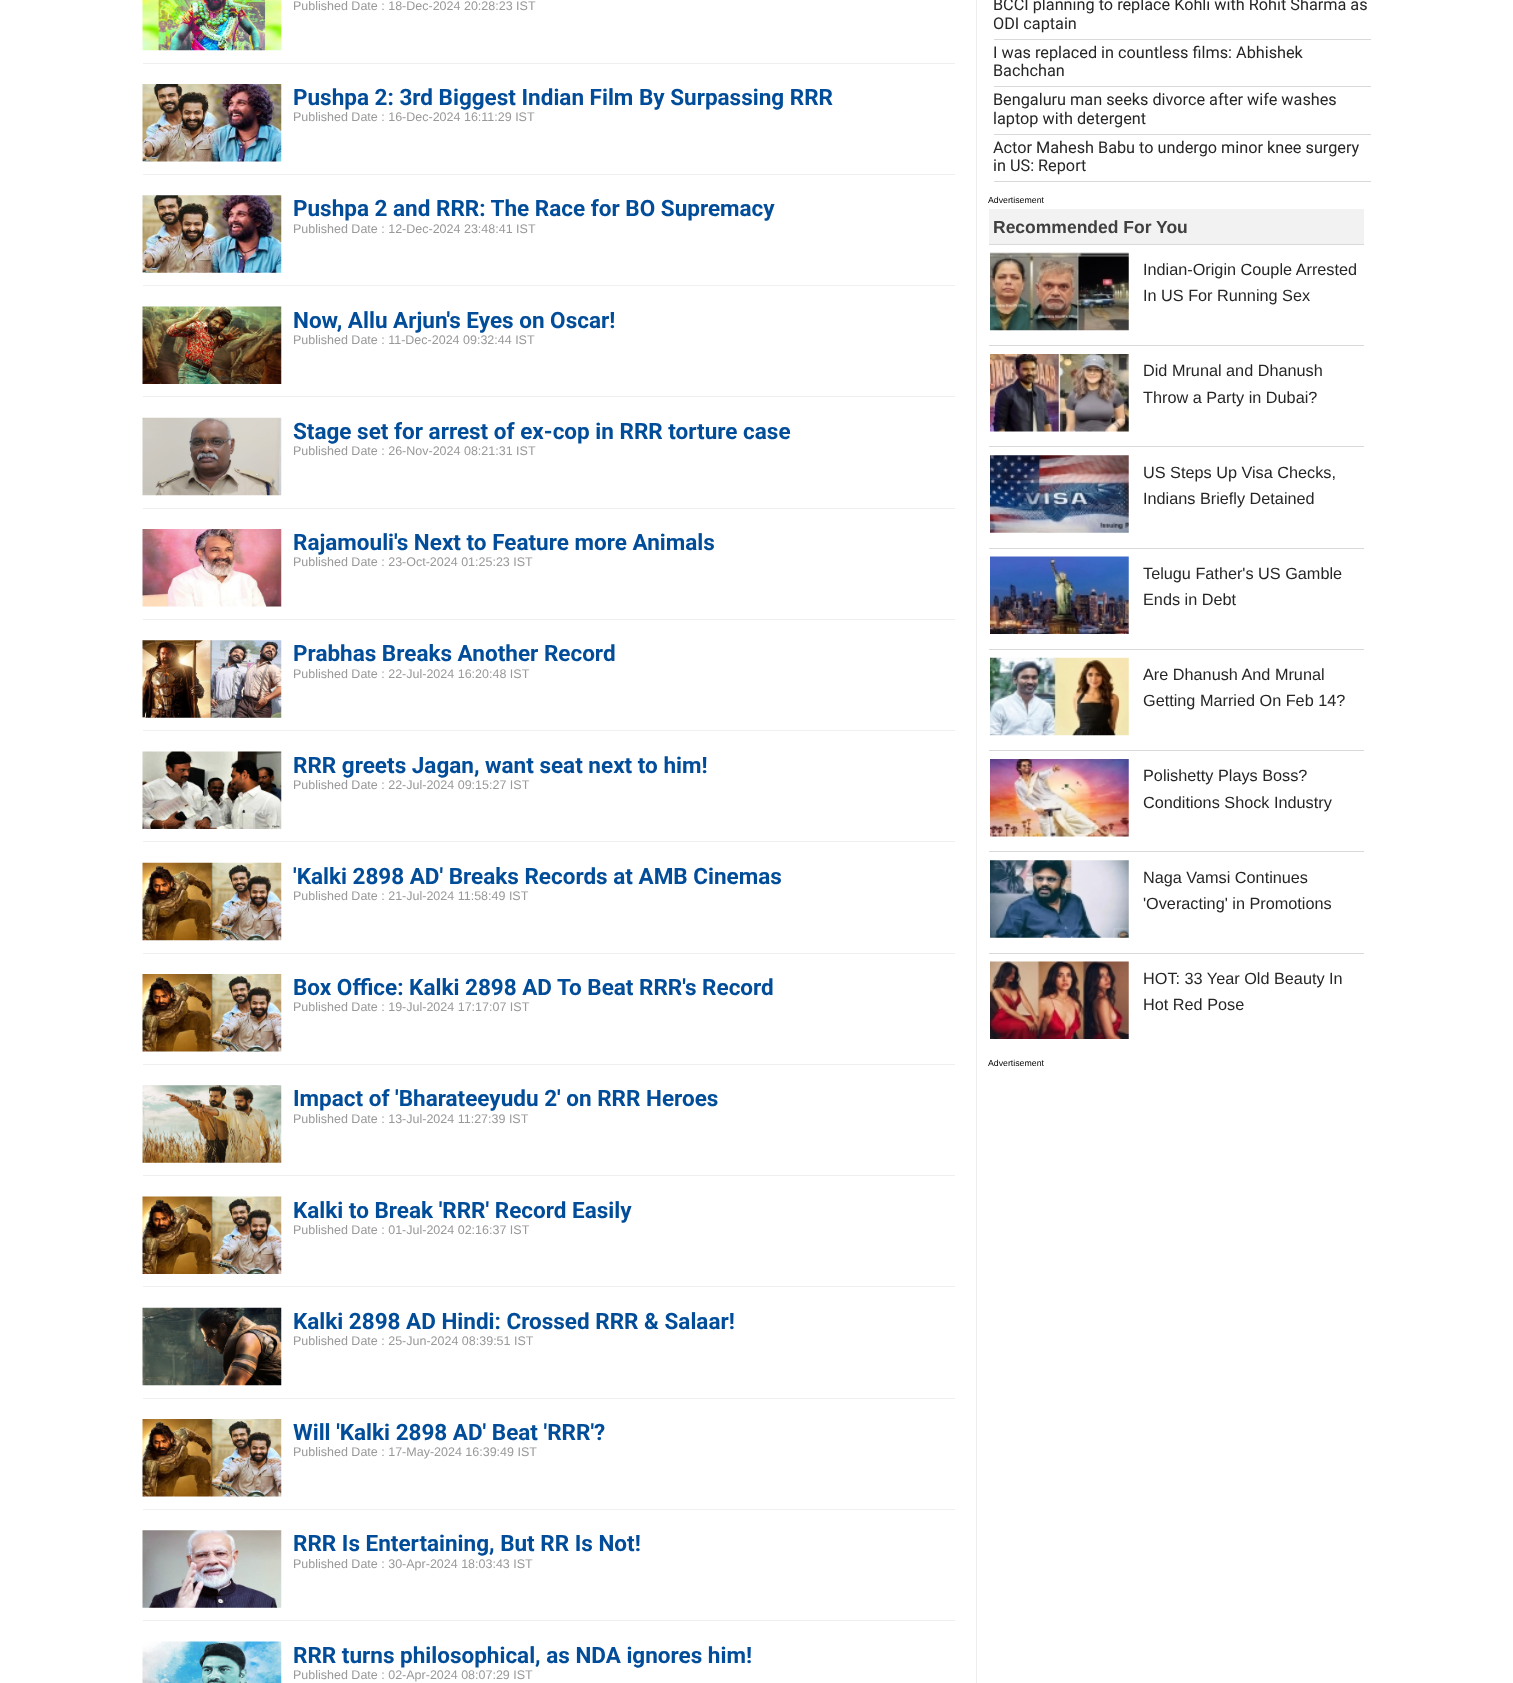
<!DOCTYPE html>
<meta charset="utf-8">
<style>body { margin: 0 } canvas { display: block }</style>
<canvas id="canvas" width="1513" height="1683"></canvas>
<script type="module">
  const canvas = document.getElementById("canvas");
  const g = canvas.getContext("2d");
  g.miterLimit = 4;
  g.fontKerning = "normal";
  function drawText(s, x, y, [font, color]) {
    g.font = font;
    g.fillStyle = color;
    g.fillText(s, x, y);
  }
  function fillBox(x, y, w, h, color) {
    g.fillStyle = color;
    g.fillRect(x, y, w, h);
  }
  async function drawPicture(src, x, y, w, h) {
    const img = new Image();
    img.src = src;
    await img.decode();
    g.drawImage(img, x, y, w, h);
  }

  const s1 = ["12.5px Liberation Sans", "#999999"];
  const s2 = ["bold 22.5px Roboto", "#024D99"];
  const s3 = ["16.25px Roboto", "#262626"];
  const s4 = ["8.75px Liberation Sans", "#000000"];
  const s5 = ["bold 17.5px Liberation Sans", "#404040"];
  const s6 = ["16.25px Liberation Sans", "#262626"];

  fillBox(0, 0, 1513, 1683, "#FFFFFF");
  fillBox(976, 0, 1, 1683, "#EDEDED");
  fillBox(143, 63, 812, 1, "#EFEFEF");
  await drawPicture("pic1.png", 142, 0, 140, 51);
  drawText("Published Date : 18-Dec-2024 20:28:23 IST", 293, 10, s1);
  fillBox(143, 174, 812, 1, "#EFEFEF");
  await drawPicture("pic2.png", 142, 84, 140, 78);
  drawText("Pushpa 2: 3rd Biggest Indian Film By Surpassing RRR", 293, 105, s2);
  drawText("Published Date : 16-Dec-2024 16:11:29 IST", 293, 121, s1);
  fillBox(143, 285, 812, 1, "#EFEFEF");
  await drawPicture("pic3.png", 142, 195, 140, 78);
  drawText("Pushpa 2 and RRR: The Race for BO Supremacy", 293, 216, s2);
  drawText("Published Date : 12-Dec-2024 23:48:41 IST", 293, 233, s1);
  fillBox(143, 396, 812, 1, "#EFEFEF");
  await drawPicture("pic4.png", 142, 306, 140, 78);
  drawText("Now, Allu Arjun's Eyes on Oscar!", 293, 328, s2);
  drawText("Published Date : 11-Dec-2024 09:32:44 IST", 293, 344, s1);
  fillBox(143, 508, 812, 1, "#EFEFEF");
  await drawPicture("pic5.png", 142, 417, 140, 79);
  drawText("Stage set for arrest of ex-cop in RRR torture case", 293, 439, s2);
  drawText("Published Date : 26-Nov-2024 08:21:31 IST", 293, 455, s1);
  fillBox(143, 619, 812, 1, "#EFEFEF");
  await drawPicture("pic6.png", 142, 529, 140, 78);
  drawText("Rajamouli's Next to Feature more Animals", 293, 550, s2);
  drawText("Published Date : 23-Oct-2024 01:25:23 IST", 293, 566, s1);
  fillBox(143, 730, 812, 1, "#EFEFEF");
  await drawPicture("pic7.png", 142, 640, 140, 78);
  drawText("Prabhas Breaks Another Record", 293, 661, s2);
  drawText("Published Date : 22-Jul-2024 16:20:48 IST", 293, 678, s1);
  fillBox(143, 841, 812, 1, "#EFEFEF");
  await drawPicture("pic8.png", 142, 751, 140, 78);
  drawText("RRR greets Jagan, want seat next to him!", 293, 773, s2);
  drawText("Published Date : 22-Jul-2024 09:15:27 IST", 293, 789, s1);
  fillBox(143, 953, 812, 1, "#EFEFEF");
  await drawPicture("pic9.png", 142, 862, 140, 79);
  drawText("'Kalki 2898 AD' Breaks Records at AMB Cinemas", 293, 884, s2);
  drawText("Published Date : 21-Jul-2024 11:58:49 IST", 293, 900, s1);
  fillBox(143, 1064, 812, 1, "#EFEFEF");
  await drawPicture("pic10.png", 142, 974, 140, 78);
  drawText("Box Office: Kalki 2898 AD To Beat RRR's Record", 293, 995, s2);
  drawText("Published Date : 19-Jul-2024 17:17:07 IST", 293, 1011, s1);
  fillBox(143, 1175, 812, 1, "#EFEFEF");
  await drawPicture("pic11.png", 142, 1085, 140, 78);
  drawText("Impact of 'Bharateeyudu 2' on RRR Heroes", 293, 1106, s2);
  drawText("Published Date : 13-Jul-2024 11:27:39 IST", 293, 1123, s1);
  fillBox(143, 1286, 812, 1, "#EFEFEF");
  await drawPicture("pic12.png", 142, 1196, 140, 78);
  drawText("Kalki to Break 'RRR' Record Easily", 293, 1218, s2);
  drawText("Published Date : 01-Jul-2024 02:16:37 IST", 293, 1234, s1);
  fillBox(143, 1398, 812, 1, "#EFEFEF");
  await drawPicture("pic13.png", 142, 1307, 140, 79);
  drawText("Kalki 2898 AD Hindi: Crossed RRR & Salaar!", 293, 1329, s2);
  drawText("Published Date : 25-Jun-2024 08:39:51 IST", 293, 1345, s1);
  fillBox(143, 1509, 812, 1, "#EFEFEF");
  await drawPicture("pic10.png", 142, 1419, 140, 78);
  drawText("Will 'Kalki 2898 AD' Beat 'RRR'?", 293, 1440, s2);
  drawText("Published Date : 17-May-2024 16:39:49 IST", 293, 1456, s1);
  fillBox(143, 1620, 812, 1, "#EFEFEF");
  await drawPicture("pic14.png", 142, 1530, 140, 78);
  drawText("RRR Is Entertaining, But RR Is Not!", 293, 1551, s2);
  drawText("Published Date : 30-Apr-2024 18:03:43 IST", 293, 1568, s1);
  await drawPicture("pic15.png", 142, 1641, 140, 42);
  drawText("RRR turns philosophical, as NDA ignores him!", 293, 1663, s2);
  drawText("Published Date : 02-Apr-2024 08:07:29 IST", 293, 1679, s1);
  fillBox(994, 39, 377, 1, "#D9D9D9");
  drawText("BCCI planning to replace Kohli with Rohit Sharma as", 993, 10, s3);
  drawText("ODI captain", 993, 29, s3);
  fillBox(994, 86, 377, 1, "#D9D9D9");
  drawText("I was replaced in countless films: Abhishek", 993, 58, s3);
  drawText("Bachchan", 993, 76, s3);
  fillBox(994, 134, 377, 1, "#D9D9D9");
  drawText("Bengaluru man seeks divorce after wife washes", 993, 105, s3);
  drawText("laptop with detergent", 993, 124, s3);
  fillBox(994, 181, 377, 1, "#D9D9D9");
  drawText("Actor Mahesh Babu to undergo minor knee surgery", 993, 153, s3);
  drawText("in US: Report", 993, 171, s3);
  drawText("Advertisement", 988, 203, s4);
  fillBox(989, 209, 375, 35, "#F2F2F2");
  drawText("Recommended For You", 993, 233, s5);
  fillBox(989, 244, 375, 1, "#D9D9D9");
  await drawPicture("pic16.png", 990, 252, 139, 79);
  drawText("Indian-Origin Couple Arrested", 1143, 275, s6);
  drawText("In US For Running Sex", 1143, 301, s6);
  fillBox(989, 345, 375, 1, "#D9D9D9");
  await drawPicture("pic17.png", 990, 354, 139, 78);
  drawText("Did Mrunal and Dhanush", 1143, 376, s6);
  drawText("Throw a Party in Dubai?", 1143, 403, s6);
  fillBox(989, 446, 375, 1, "#D9D9D9");
  await drawPicture("pic18.png", 990, 455, 139, 78);
  drawText("US Steps Up Visa Checks,", 1143, 478, s6);
  drawText("Indians Briefly Detained", 1143, 504, s6);
  fillBox(989, 548, 375, 1, "#D9D9D9");
  await drawPicture("pic19.png", 990, 556, 139, 78);
  drawText("Telugu Father's US Gamble", 1143, 579, s6);
  drawText("Ends in Debt", 1143, 605, s6);
  fillBox(989, 649, 375, 1, "#D9D9D9");
  await drawPicture("pic20.png", 990, 657, 139, 79);
  drawText("Are Dhanush And Mrunal", 1143, 680, s6);
  drawText("Getting Married On Feb 14?", 1143, 706, s6);
  fillBox(989, 750, 375, 1, "#D9D9D9");
  await drawPicture("pic21.png", 990, 759, 139, 78);
  drawText("Polishetty Plays Boss?", 1143, 781, s6);
  drawText("Conditions Shock Industry", 1143, 808, s6);
  fillBox(989, 851, 375, 1, "#D9D9D9");
  await drawPicture("pic22.png", 990, 860, 139, 78);
  drawText("Naga Vamsi Continues", 1143, 883, s6);
  drawText("'Overacting' in Promotions", 1143, 909, s6);
  fillBox(989, 953, 375, 1, "#D9D9D9");
  await drawPicture("pic23.png", 990, 961, 139, 78);
  drawText("HOT: 33 Year Old Beauty In", 1143, 984, s6);
  drawText("Hot Red Pose", 1143, 1010, s6);
  drawText("Advertisement", 988, 1066, s4);
</script>
